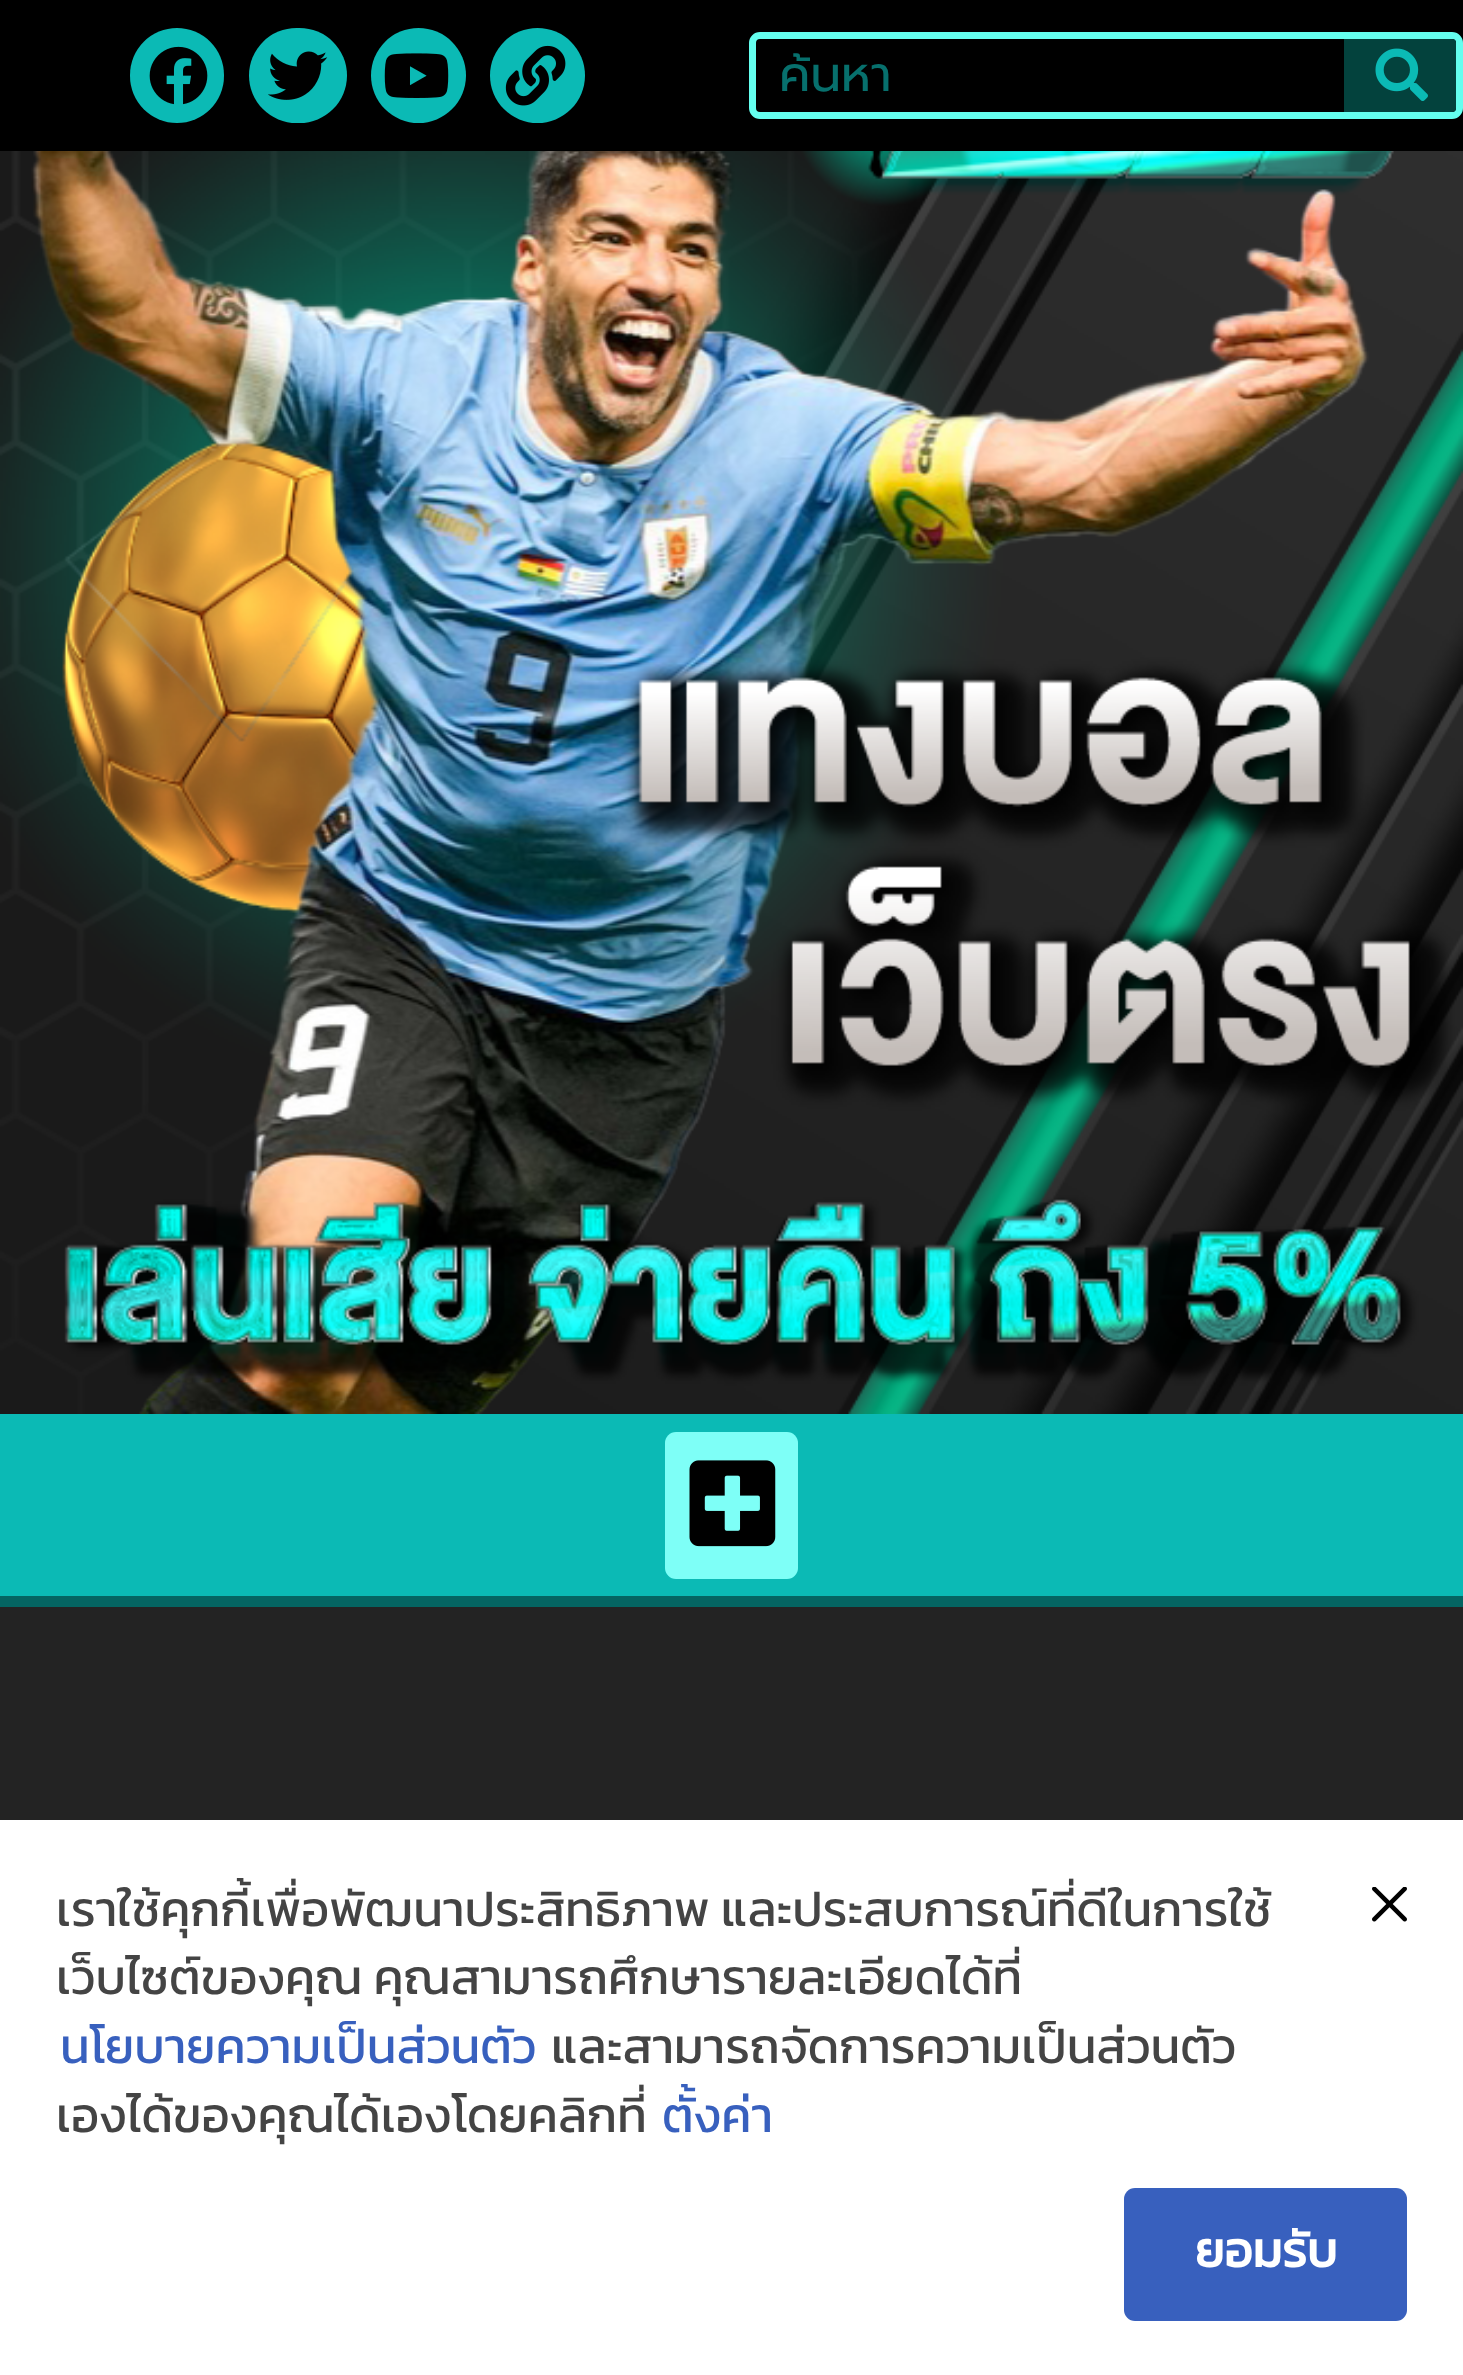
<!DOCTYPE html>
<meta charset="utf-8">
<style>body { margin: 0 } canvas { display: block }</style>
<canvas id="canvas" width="1463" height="2375"></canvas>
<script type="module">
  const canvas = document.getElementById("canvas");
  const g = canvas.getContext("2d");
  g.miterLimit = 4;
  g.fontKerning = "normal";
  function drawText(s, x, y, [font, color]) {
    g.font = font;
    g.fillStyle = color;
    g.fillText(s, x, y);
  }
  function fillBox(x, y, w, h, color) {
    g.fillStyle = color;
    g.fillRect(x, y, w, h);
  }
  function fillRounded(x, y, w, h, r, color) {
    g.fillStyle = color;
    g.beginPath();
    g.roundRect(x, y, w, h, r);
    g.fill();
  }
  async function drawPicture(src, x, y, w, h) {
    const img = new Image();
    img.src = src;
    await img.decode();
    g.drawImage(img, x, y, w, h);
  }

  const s1 = ["49px Prompt", "#07706D"];
  const s2 = ["49px Kanit", "#444444"];
  const s3 = ["49px Kanit", "#3860BE"];
  const s4 = ["bold 49px Kanit", "#FFFFFF"];

  fillBox(0, 0, 1463, 2375, "#232323");
  fillBox(0, 0, 1463, 151, "#000000");
  fillRounded(130, 28, 94, 95, 47, "#0BBAB5");
  await drawPicture("pic1.png", 149, 46, 59, 59);
  fillRounded(249, 28, 98, 95, 47.5, "#0BBAB5");
  await drawPicture("pic2.png", 268, 51, 60, 49);
  g.beginPath();
  g.arc(418.5, 75.5, 47.5, 0, Math.PI * 2);
  g.fill();
  await drawPicture("pic3.png", 384, 53, 65, 45);
  g.beginPath();
  g.arc(537.5, 75.5, 47.5, 0, Math.PI * 2);
  g.fill();
  await drawPicture("pic4.png", 505, 45, 61, 61);
  g.beginPath();
  g.roundRect(752.5, 35.5, 707, 80, 7.5);
  g.strokeStyle = "#64FFEF";
  g.lineWidth = 7;
  g.stroke();
  g.save();
  g.beginPath();
  g.rect(781, 39, 490, 73);
  g.clip();
  drawText("ค้นหา", 779, 91, s1);
  g.restore();
  g.fillStyle = "#03423D";
  g.beginPath();
  g.roundRect(1344, 39, 112, 73, [0, 4, 4, 0]);
  g.fill();
  await drawPicture("pic5.png", 1375, 48, 53, 53);
  fillBox(0, 1414, 1463, 182, "#0BBAB5");
  fillBox(0, 1596, 1463, 11, "#046562");
  await drawPicture("pic6.png", 0, 151, 1463, 1263);
  fillRounded(665, 1432, 133, 147, 11, "#7EFFF7");
  await drawPicture("pic7.png", 689, 1460, 87, 87);
  fillBox(0, 1820, 1463, 555, "#FFFFFF");
  drawText("เราใช้คุกกี้เพื่อพัฒนาประสิทธิภาพ และประสบการณ์ที่ดีในการใช้", 56, 1926, s2);
  drawText("เว็บไซต์ของคุณ คุณสามารถศึกษารายละเอียดได้ที่", 56, 1994, s2);
  drawText("นโยบายความเป็นส่วนตัว", 60, 2063, s3);
  drawText("และสามารถจัดการความเป็นส่วนตัว", 551, 2063, s2);
  drawText("เองได้ของคุณได้เองโดยคลิกที่", 56, 2132, s2);
  drawText("ตั้งค่า", 662, 2132, s3);
  await drawPicture("pic8.png", 1372, 1887, 35, 35);
  fillRounded(1124, 2188, 283, 133, 11, "#3860BE");
  drawText("ยอมรับ", 1195, 2267, s4);
</script>
